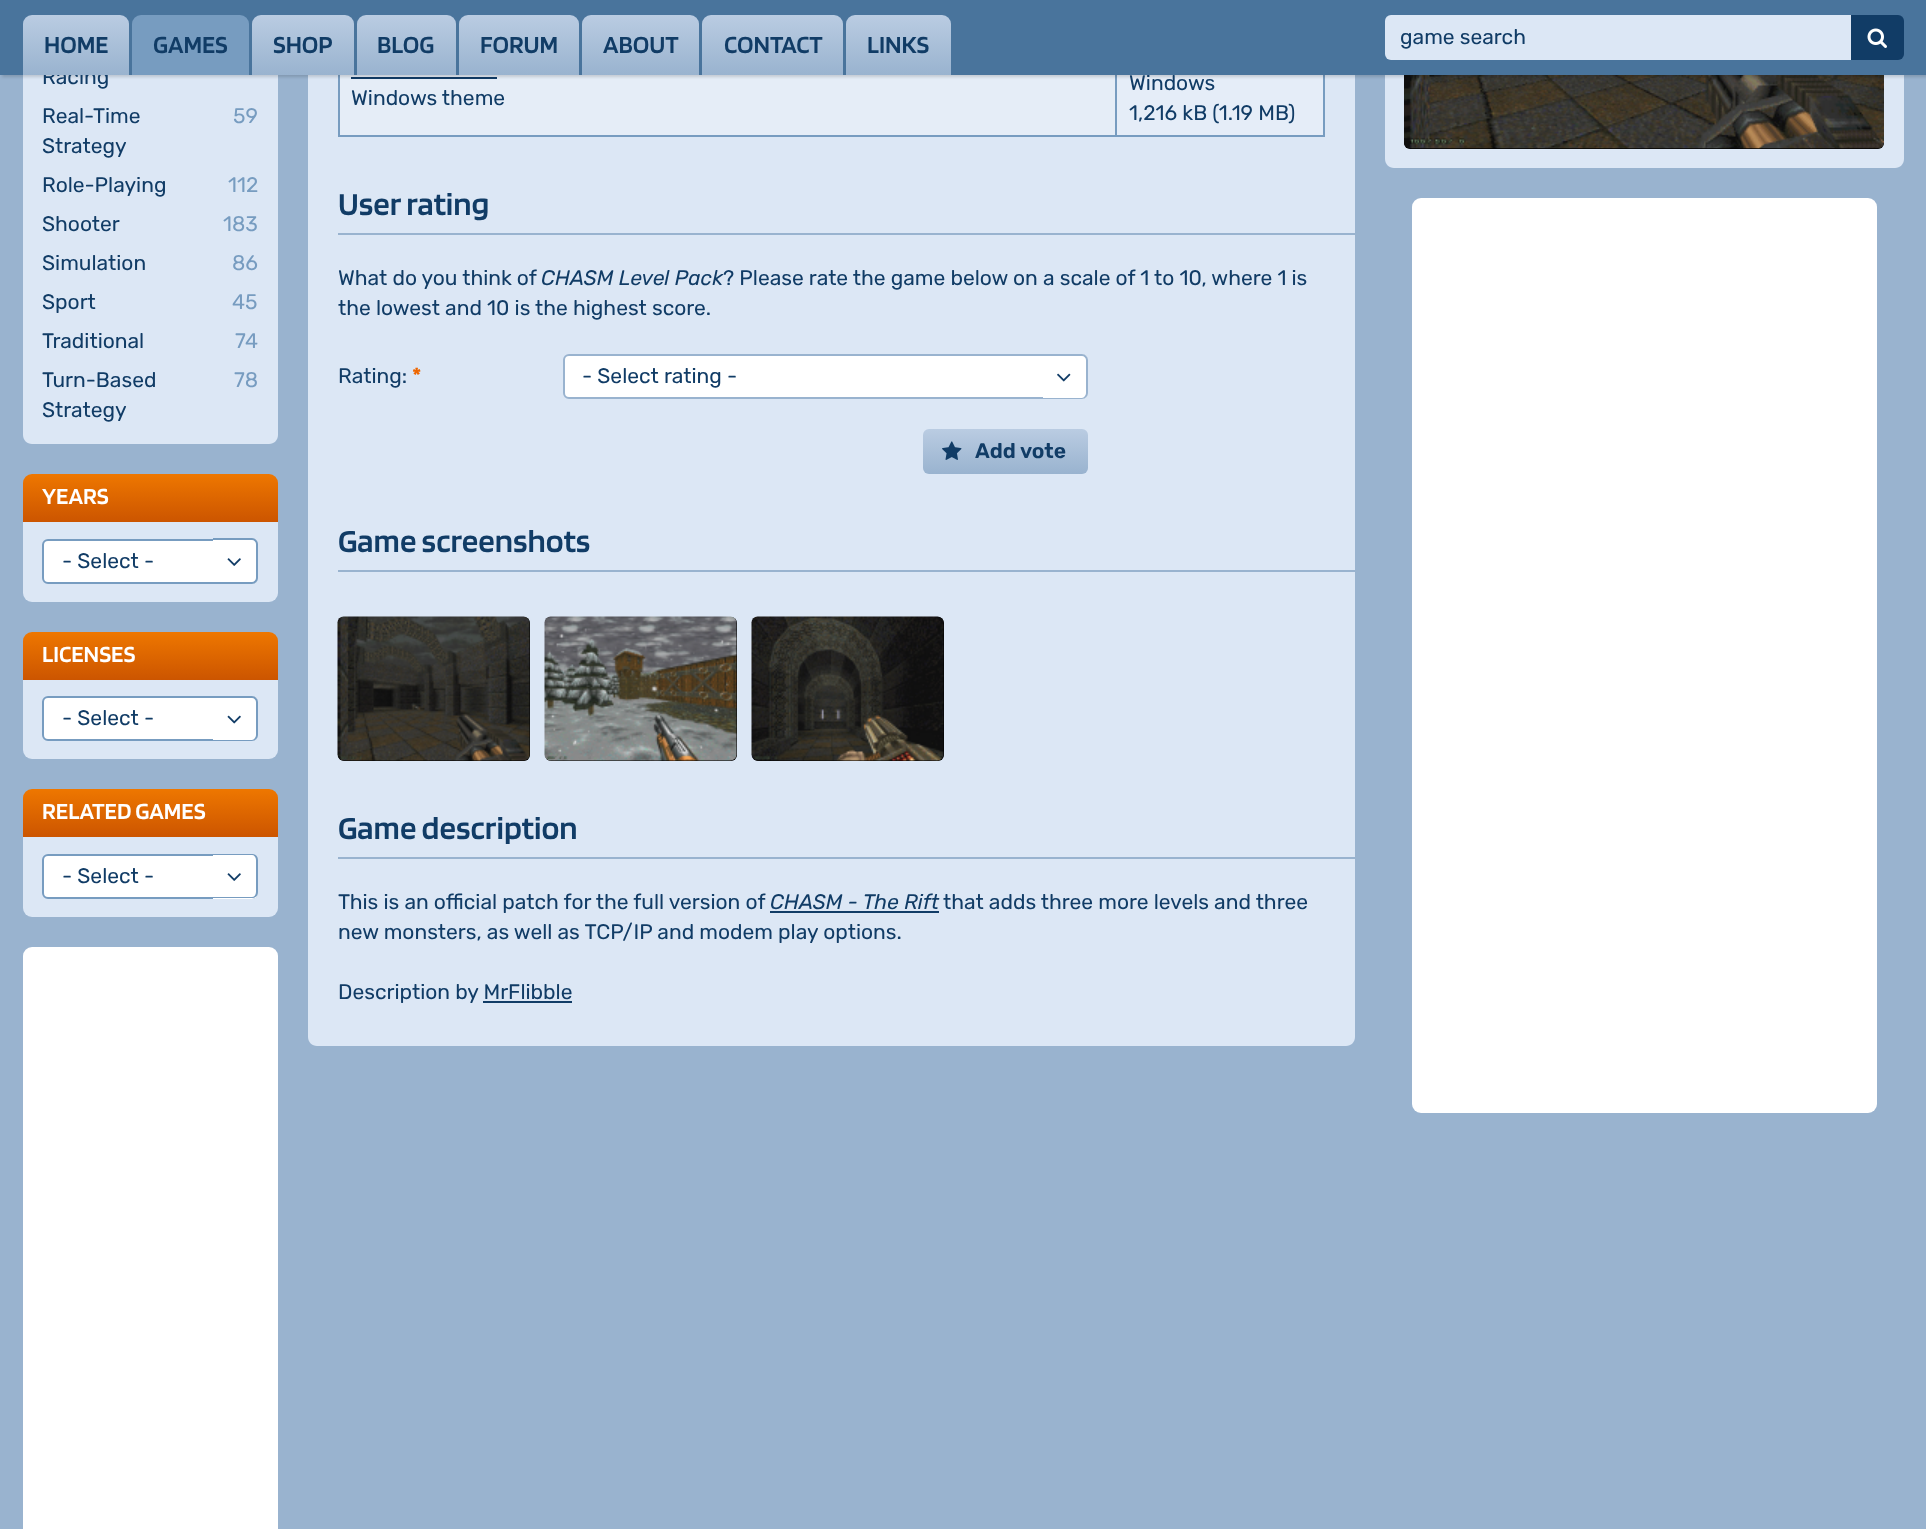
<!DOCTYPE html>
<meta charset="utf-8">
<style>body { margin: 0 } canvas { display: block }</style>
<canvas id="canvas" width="1926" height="1529"></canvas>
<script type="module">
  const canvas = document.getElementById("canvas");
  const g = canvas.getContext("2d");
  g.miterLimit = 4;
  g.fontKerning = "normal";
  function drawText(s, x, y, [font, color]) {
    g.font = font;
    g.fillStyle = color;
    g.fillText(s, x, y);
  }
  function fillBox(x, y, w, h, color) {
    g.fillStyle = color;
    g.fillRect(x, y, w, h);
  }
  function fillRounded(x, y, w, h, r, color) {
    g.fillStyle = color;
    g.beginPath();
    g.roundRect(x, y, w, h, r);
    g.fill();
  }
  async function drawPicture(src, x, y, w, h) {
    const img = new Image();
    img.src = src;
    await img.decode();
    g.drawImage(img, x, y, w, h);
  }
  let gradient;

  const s1 = ["21px Rubik", "#113C66"];
  const s2 = ["600 25.5px Blinker", "#113C66"];
  const s3 = ["21px Rubik", "#779CC0"];
  const s4 = ["600 24px Blinker", "#FFFFFF"];
  const s5 = ["600 33px Blinker", "#113C66"];
  const s6 = ["italic 21px Rubik", "#113C66"];
  const s7 = ["600 21px Rubik", "#EE6600"];
  const s8 = ["600 21px Rubik", "#113C66"];

  fillBox(0, 0, 1926, 1529, "#99B3CF");
  g.fillStyle = "#DCE7F5";
  g.beginPath();
  g.moveTo(23, -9);
  g.lineTo(278, -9);
  g.lineTo(278, 435);
  g.bezierCurveTo(278, 440, 274, 444, 269, 444);
  g.lineTo(32, 444);
  g.bezierCurveTo(27, 444, 23, 440, 23, 435);
  g.closePath();
  g.fill();
  g.beginPath();
  g.moveTo(308, -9);
  g.lineTo(1355, -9);
  g.lineTo(1355, 1037);
  g.bezierCurveTo(1355, 1042, 1351, 1046, 1346, 1046);
  g.lineTo(317, 1046);
  g.bezierCurveTo(312, 1046, 308, 1042, 308, 1037);
  g.closePath();
  g.fill();
  fillBox(340, 75, 775, 60, "#E5EDF7");
  fillBox(1323, 75, 2, 62, "#779CC0");
  fillBox(1115, 135, 210, 2, "#779CC0");
  fillBox(1115, 75, 2, 62, "#779CC0");
  fillBox(338, 135, 778, 2, "#779CC0");
  fillBox(338, 75, 2, 62, "#779CC0");
  fillBox(351, 77, 146, 2, "#113C66");
  fillBox(1117, 75, 206, 60, "#E5EDF8");
  g.fillStyle = "#DCE7F5";
  g.beginPath();
  g.moveTo(1385, -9);
  g.lineTo(1904, -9);
  g.lineTo(1904, 159);
  g.bezierCurveTo(1904, 164, 1900, 168, 1895, 168);
  g.lineTo(1394, 168);
  g.bezierCurveTo(1389, 168, 1385, 164, 1385, 159);
  g.closePath();
  g.fill();
  fillRounded(1404, -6, 480, 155, 6, "#000000");
  await drawPicture("pic9.png", 1404, 75, 480, 74);
  g.fillStyle = "rgba(0, 0, 0, 0.15)";
  g.filter = "blur(1.5px)";
  g.beginPath();
  g.rect(2, 2, 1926, 75);
  g.fill();
  g.filter = "none";
  drawText("Racing", 42, 84, s1);
  drawText("Windows", 1129, 90, s1);
  fillBox(0, 0, 1926, 75, "#49749C");
  gradient = g.createLinearGradient(76, 15, 76, 75);
  gradient.addColorStop(0, "#BACCE2");
  gradient.addColorStop(1, "#99B3CF");
  g.fillStyle = gradient;
  g.beginPath();
  g.roundRect(23, 15, 106, 60, [9, 9, 0, 0]);
  g.fill();
  drawText("HOME", 44, 53, s2);
  g.fillStyle = "#779CC0";
  g.beginPath();
  g.roundRect(132, 15, 117, 60, [9, 9, 0, 0]);
  g.fill();
  drawText("GAMES", 153, 53, s2);
  gradient = g.createLinearGradient(303, 15, 303, 75);
  gradient.addColorStop(0, "#BACCE2");
  gradient.addColorStop(1, "#99B3CF");
  g.fillStyle = gradient;
  g.beginPath();
  g.roundRect(252, 15, 102, 60, [9, 9, 0, 0]);
  g.fill();
  drawText("SHOP", 273, 53, s2);
  gradient = g.createLinearGradient(407, 15, 407, 75);
  gradient.addColorStop(0, "#BACCE2");
  gradient.addColorStop(1, "#99B3CF");
  g.fillStyle = gradient;
  g.beginPath();
  g.roundRect(357, 15, 99, 60, [9, 9, 0, 0]);
  g.fill();
  drawText("BLOG", 377, 53, s2);
  gradient = g.createLinearGradient(519, 15, 519, 75);
  gradient.addColorStop(0, "#BACCE2");
  gradient.addColorStop(1, "#99B3CF");
  g.fillStyle = gradient;
  g.beginPath();
  g.roundRect(459, 15, 120, 60, [9, 9, 0, 0]);
  g.fill();
  drawText("FORUM", 480, 53, s2);
  gradient = g.createLinearGradient(641, 15, 641, 75);
  gradient.addColorStop(0, "#BACCE2");
  gradient.addColorStop(1, "#99B3CF");
  g.fillStyle = gradient;
  g.beginPath();
  g.roundRect(582, 15, 117, 60, [9, 9, 0, 0]);
  g.fill();
  drawText("ABOUT", 603, 53, s2);
  gradient = g.createLinearGradient(773, 15, 773, 75);
  gradient.addColorStop(0, "#BACCE2");
  gradient.addColorStop(1, "#99B3CF");
  g.fillStyle = gradient;
  g.beginPath();
  g.roundRect(702, 15, 141, 60, [9, 9, 0, 0]);
  g.fill();
  drawText("CONTACT", 724, 53, s2);
  gradient = g.createLinearGradient(899, 15, 899, 75);
  gradient.addColorStop(0, "#BACCE2");
  gradient.addColorStop(1, "#99B3CF");
  g.fillStyle = gradient;
  g.beginPath();
  g.roundRect(846, 15, 105, 60, [9, 9, 0, 0]);
  g.fill();
  drawText("LINKS", 867, 53, s2);
  g.fillStyle = "#DCE7F5";
  g.beginPath();
  g.roundRect(1385, 15, 466, 45, [6, 0, 0, 6]);
  g.fill();
  drawText("game search", 1400, 44, s1);
  g.beginPath();
  g.roundRect(1851, 15, 53, 45, [0, 6, 6, 0]);
  g.fill();
  await drawPicture("pic1.png", 1867, 28, 20, 20);
  drawText("Real-Time", 42, 123, s1);
  drawText("59", 233, 123, s3);
  drawText("Strategy", 42, 153, s1);
  drawText("Role-Playing", 42, 192, s1);
  drawText("112", 228, 192, s3);
  drawText("Shooter", 42, 231, s1);
  drawText("183", 223, 231, s3);
  drawText("Simulation", 42, 270, s1);
  drawText("86", 232, 270, s3);
  drawText("Sport", 42, 309, s1);
  drawText("45", 232, 309, s3);
  drawText("Traditional", 42, 348, s1);
  drawText("74", 235, 348, s3);
  drawText("Turn-Based", 42, 387, s1);
  drawText("78", 234, 387, s3);
  drawText("Strategy", 42, 417, s1);
  gradient = g.createLinearGradient(150, 474, 150, 522);
  gradient.addColorStop(0, "#EE7700");
  gradient.addColorStop(1, "#CC5500");
  g.fillStyle = gradient;
  g.beginPath();
  g.roundRect(23, 474, 255, 48, [9, 9, 0, 0]);
  g.fill();
  drawText("YEARS", 42, 504, s4);
  g.fillStyle = "#DCE7F5";
  g.beginPath();
  g.roundRect(23, 522, 255, 80, [0, 0, 9, 9]);
  g.fill();
  g.fillStyle = "#FFFFFF";
  g.beginPath();
  g.roundRect(43, 540, 214, 43, 5);
  g.fill();
  g.strokeStyle = "#779CC0";
  g.lineWidth = 2;
  g.stroke();
  drawText("- Select -", 62, 568, s1);
  g.fillStyle = "#FFFFFF";
  g.beginPath();
  g.roundRect(213, 539, 45, 45, [0, 6, 6, 0]);
  g.fill();
  g.fillStyle = "#779CC0";
  g.beginPath();
  g.moveTo(213, 538);
  g.lineTo(252, 538);
  g.bezierCurveTo(255, 538, 258, 541, 258, 544);
  g.lineTo(258, 578);
  g.bezierCurveTo(258, 581, 255, 584, 252, 584);
  g.lineTo(213, 584);
  g.closePath();
  g.moveTo(213, 540);
  g.lineTo(252, 540);
  g.bezierCurveTo(254, 540, 256, 542, 256, 544);
  g.lineTo(256, 578);
  g.bezierCurveTo(256, 580, 254, 582, 252, 582);
  g.lineTo(213, 582);
  g.closePath();
  g.fill("evenodd");
  await drawPicture("pic2.png", 227, 558, 14, 8);
  gradient = g.createLinearGradient(150, 632, 150, 680);
  gradient.addColorStop(0, "#EE7700");
  gradient.addColorStop(1, "#CC5500");
  g.fillStyle = gradient;
  g.beginPath();
  g.roundRect(23, 632, 255, 48, [9, 9, 0, 0]);
  g.fill();
  drawText("LICENSES", 42, 662, s4);
  g.fillStyle = "#DCE7F5";
  g.beginPath();
  g.roundRect(23, 680, 255, 79, [0, 0, 9, 9]);
  g.fill();
  g.fillStyle = "#FFFFFF";
  g.beginPath();
  g.roundRect(43, 697, 214, 43, 5);
  g.fill();
  g.stroke();
  drawText("- Select -", 62, 725, s1);
  g.fillStyle = "#FFFFFF";
  g.beginPath();
  g.roundRect(213, 696, 45, 45, [0, 6, 6, 0]);
  g.fill();
  g.fillStyle = "#779CC0";
  g.beginPath();
  g.moveTo(213, 696);
  g.lineTo(252, 696);
  g.bezierCurveTo(255, 696, 258, 699, 258, 702);
  g.lineTo(258, 735);
  g.bezierCurveTo(258, 738, 255, 741, 252, 741);
  g.lineTo(213, 741);
  g.closePath();
  g.moveTo(213, 698);
  g.lineTo(252, 698);
  g.bezierCurveTo(254, 698, 256, 700, 256, 702);
  g.lineTo(256, 735);
  g.bezierCurveTo(256, 737, 254, 740, 252, 740);
  g.lineTo(213, 740);
  g.closePath();
  g.fill("evenodd");
  await drawPicture("pic3.png", 227, 715, 14, 9);
  gradient = g.createLinearGradient(150, 789, 150, 837);
  gradient.addColorStop(0, "#EE7700");
  gradient.addColorStop(1, "#CC5500");
  g.fillStyle = gradient;
  g.beginPath();
  g.roundRect(23, 789, 255, 48, [9, 9, 0, 0]);
  g.fill();
  drawText("RELATED GAMES", 42, 819, s4);
  g.fillStyle = "#DCE7F5";
  g.beginPath();
  g.roundRect(23, 837, 255, 80, [0, 0, 9, 9]);
  g.fill();
  g.fillStyle = "#FFFFFF";
  g.beginPath();
  g.roundRect(43, 855, 214, 43, 5);
  g.fill();
  g.stroke();
  drawText("- Select -", 62, 883, s1);
  g.fillStyle = "#FFFFFF";
  g.beginPath();
  g.roundRect(213, 854, 45, 45, [0, 6, 6, 0]);
  g.fill();
  g.fillStyle = "#779CC0";
  g.beginPath();
  g.moveTo(213, 854);
  g.lineTo(252, 854);
  g.bezierCurveTo(255, 854, 258, 856, 258, 860);
  g.lineTo(258, 892);
  g.bezierCurveTo(258, 896, 255, 898, 252, 898);
  g.lineTo(213, 898);
  g.closePath();
  g.moveTo(213, 855);
  g.lineTo(252, 855);
  g.bezierCurveTo(254, 855, 256, 857, 256, 860);
  g.lineTo(256, 892);
  g.bezierCurveTo(256, 895, 254, 897, 252, 897);
  g.lineTo(213, 897);
  g.closePath();
  g.fill("evenodd");
  await drawPicture("pic2.png", 227, 873, 14, 8);
  fillRounded(23, 947, 255, 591, 9, "#FFFFFF");
  drawText("Windows theme", 351, 105, s1);
  drawText("1,216 kB (1.19 MB)", 1129, 120, s1);
  fillBox(338, 233, 1017, 2, "#99B3CF");
  drawText("User rating", 338, 215, s5);
  drawText("What do you think of", 338, 285, s1);
  drawText("CHASM Level Pack", 541, 285, s6);
  drawText("? Please rate the game below on a scale of 1 to 10, where 1 is", 723, 285, s1);
  drawText("the lowest and 10 is the highest score.", 338, 315, s1);
  drawText("Rating:", 338, 383, s1);
  drawText("*", 412, 383, s7);
  g.fillStyle = "#FFFFFF";
  g.beginPath();
  g.roundRect(564, 355, 523, 43, 5);
  g.fill();
  g.strokeStyle = "#99B3CF";
  g.stroke();
  drawText("- Select rating -", 582, 383, s1);
  g.fillStyle = "#FFFFFF";
  g.beginPath();
  g.roundRect(1043, 354, 45, 45, [0, 6, 6, 0]);
  g.fill();
  g.fillStyle = "#99B3CF";
  g.beginPath();
  g.moveTo(1042, 354);
  g.lineTo(1082, 354);
  g.bezierCurveTo(1085, 354, 1088, 357, 1088, 360);
  g.lineTo(1088, 393);
  g.bezierCurveTo(1088, 396, 1085, 399, 1082, 399);
  g.lineTo(1042, 399);
  g.closePath();
  g.moveTo(1042, 356);
  g.lineTo(1082, 356);
  g.bezierCurveTo(1084, 356, 1086, 358, 1086, 360);
  g.lineTo(1086, 393);
  g.bezierCurveTo(1086, 395, 1084, 398, 1082, 398);
  g.lineTo(1042, 398);
  g.closePath();
  g.fill("evenodd");
  await drawPicture("pic4.png", 1057, 373, 14, 9);
  gradient = g.createLinearGradient(1005, 429, 1005, 474);
  gradient.addColorStop(0, "#BACCE2");
  gradient.addColorStop(1, "#99B3CF");
  g.fillStyle = gradient;
  g.beginPath();
  g.roundRect(923, 429, 165, 45, 6);
  g.fill();
  await drawPicture("pic5.png", 942, 441, 20, 19);
  drawText("Add vote", 975, 458, s8);
  fillBox(338, 570, 1017, 2, "#99B3CF");
  drawText("Game screenshots", 338, 552, s5);
  fillRounded(338, 617, 192, 144, 6, "#000000");
  await drawPicture("pic6.png", 337, 616, 193, 145);
  fillRounded(545, 617, 192, 144, 6, "#000000");
  await drawPicture("pic7.png", 544, 616, 193, 145);
  fillRounded(752, 617, 192, 144, 6, "#000000");
  await drawPicture("pic8.png", 751, 616, 193, 145);
  fillBox(338, 857, 1017, 2, "#99B3CF");
  drawText("Game description", 338, 839, s5);
  drawText("This is an official patch for the full version of", 338, 909, s1);
  drawText("CHASM - The Rift", 770, 909, s6);
  fillBox(770, 911, 169, 2, "#113C66");
  drawText("that adds three more levels and three", 943, 909, s1);
  drawText("new monsters, as well as TCP/IP and modem play options.", 338, 939, s1);
  drawText("Description by MrFlibble", 338, 999, s1);
  fillBox(483, 1001, 89, 2, "#113C66");
  fillRounded(1412, 198, 465, 915, 9, "#FFFFFF");
</script>
